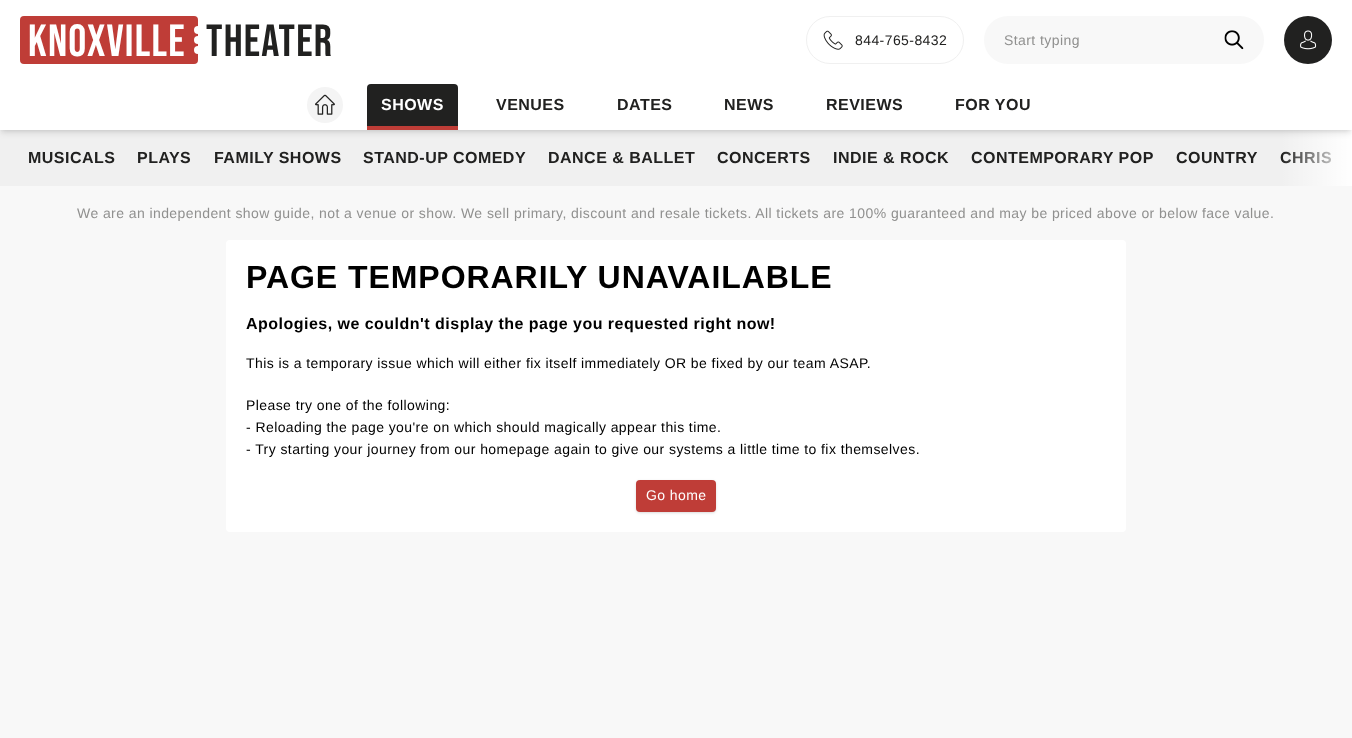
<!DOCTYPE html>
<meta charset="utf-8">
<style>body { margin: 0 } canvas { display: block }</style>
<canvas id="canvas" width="1352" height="738"></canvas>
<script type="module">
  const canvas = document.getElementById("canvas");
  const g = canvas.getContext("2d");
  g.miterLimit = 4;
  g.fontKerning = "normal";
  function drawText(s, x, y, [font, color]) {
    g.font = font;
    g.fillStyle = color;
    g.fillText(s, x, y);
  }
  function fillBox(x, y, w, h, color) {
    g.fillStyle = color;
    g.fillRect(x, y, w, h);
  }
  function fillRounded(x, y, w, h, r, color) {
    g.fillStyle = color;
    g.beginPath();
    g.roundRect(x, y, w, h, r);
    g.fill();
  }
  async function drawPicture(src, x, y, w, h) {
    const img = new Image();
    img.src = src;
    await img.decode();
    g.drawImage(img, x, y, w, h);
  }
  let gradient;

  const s1 = ["bold 16px Liberation Sans", "#212120"];
  const s2 = ["45px Bebas Neue", "#FFFFFF"];
  const s3 = ["45px Bebas Neue", "#212120"];
  const s4 = ["14px Liberation Sans", "#212120"];
  const s5 = ["14px Liberation Sans", "#90908F"];
  const s6 = ["bold 16px Liberation Sans", "#FFFFFF"];
  const s7 = ["bold 32px Liberation Sans", "#000000"];
  const s8 = ["bold 16px Liberation Sans", "#000000"];
  const s9 = ["14px Liberation Sans", "#000000"];
  const s10 = ["14px Liberation Sans", "#FFFFFF"];

  fillBox(0, 0, 1352, 738, "#F8F8F8");
  fillBox(0, 130, 1352, 56, "#F0F0F0");
  g.letterSpacing = "0.48px";
  drawText("CHRIS", 1280, 163, s1);
  gradient = g.createLinearGradient(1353, 158, 1281, 158);
  gradient.addColorStop(0, "#FFFFFF");
  gradient.addColorStop(1, "rgba(255, 255, 255, 0)");
  g.fillStyle = gradient;
  g.fillRect(1283, 130, 69, 56);
  g.fillStyle = "rgba(0, 0, 0, 0.1)";
  g.filter = "blur(2px)";
  g.beginPath();
  g.rect(2, 68, 1348, 62);
  g.fill();
  g.filter = "none";
  g.filter = "blur(3px)";
  g.beginPath();
  g.rect(1, 69, 1350, 64);
  g.fill();
  g.filter = "none";
  fillBox(0, 0, 1352, 130, "#FFFFFF");
  fillRounded(20, 16, 178, 48, 4, "#BF3D37");
  g.letterSpacing = "1.25px";
  drawText("Knoxville", 28, 56, s2);
  g.beginPath();
  g.arc(198, 30, 4, 0, Math.PI * 2);
  g.fill();
  g.beginPath();
  g.arc(198, 40, 4, 0, Math.PI * 2);
  g.fill();
  g.beginPath();
  g.arc(198, 50, 4, 0, Math.PI * 2);
  g.fill();
  drawText("Theater", 206, 56, s3);
  g.beginPath();
  g.roundRect(806.5, 16.5, 157, 47, 23.5);
  g.strokeStyle = "#F0F0F0";
  g.stroke();
  await drawPicture("pic1.png", 823, 30, 20, 20);
  g.letterSpacing = "0.42px";
  drawText("844-765-8432", 855, 45, s4);
  fillRounded(984, 16, 280, 48, 24, "#F8F8F8");
  drawText("Start typing", 1004, 45, s5);
  await drawPicture("pic2.png", 1224, 30, 20, 20);
  g.fillStyle = "#212120";
  g.beginPath();
  g.arc(1308, 40, 24, 0, Math.PI * 2);
  g.fill();
  await drawPicture("pic3.png", 1300, 30, 17, 20);
  g.fillStyle = "#F4F4F4";
  g.beginPath();
  g.arc(325, 105, 18, 0, Math.PI * 2);
  g.fill();
  await drawPicture("pic4.png", 315, 94, 20, 21);
  g.fillStyle = "#212120";
  g.beginPath();
  g.roundRect(367, 84, 91, 42, [4, 4, 0, 0]);
  g.fill();
  fillBox(367, 126, 91, 4, "#BF3D37");
  g.letterSpacing = "0.48px";
  drawText("SHOWS", 381, 110, s6);
  drawText("VENUES", 496, 110, s1);
  drawText("DATES", 617, 110, s1);
  drawText("NEWS", 724, 110, s1);
  drawText("REVIEWS", 826, 110, s1);
  drawText("FOR YOU", 955, 110, s1);
  drawText("MUSICALS", 28, 163, s1);
  drawText("PLAYS", 137, 163, s1);
  drawText("FAMILY SHOWS", 214, 163, s1);
  drawText("STAND-UP COMEDY", 363, 163, s1);
  drawText("DANCE & BALLET", 548, 163, s1);
  drawText("CONCERTS", 717, 163, s1);
  drawText("INDIE & ROCK", 833, 163, s1);
  drawText("CONTEMPORARY POP", 971, 163, s1);
  drawText("COUNTRY", 1176, 163, s1);
  g.letterSpacing = "0.42px";
  drawText("We are an independent show guide, not a venue or show. We sell primary, discount and resale tickets. All tickets are 100% guaranteed and may be priced above or below face value.", 77, 218, s5);
  fillRounded(226, 240, 900, 292, 4, "#FFFFFF");
  g.letterSpacing = "0.95px";
  drawText("PAGE TEMPORARILY UNAVAILABLE", 246, 288, s7);
  g.letterSpacing = "0.48px";
  drawText("Apologies, we couldn't display the page you requested right now!", 246, 329, s8);
  g.letterSpacing = "0.42px";
  drawText("This is a temporary issue which will either fix itself immediately OR be fixed by our team ASAP.", 246, 368, s9);
  drawText("Please try one of the following:", 246, 410, s9);
  drawText("- Reloading the page you're on which should magically appear this time.", 246, 432, s9);
  drawText("- Try starting your journey from our homepage again to give our systems a little time to fix themselves.", 246, 454, s9);
  g.fillStyle = "rgba(0, 0, 0, 0.1)";
  g.filter = "blur(1px)";
  g.beginPath();
  g.roundRect(637, 482, 78, 30, 3);
  g.fill();
  g.filter = "none";
  g.filter = "blur(1.5px)";
  g.beginPath();
  g.roundRect(636, 481, 80, 32, 4);
  g.fill();
  g.filter = "none";
  fillRounded(636, 480, 80, 32, 4, "#BF3D37");
  drawText("Go home", 646, 500, s10);
</script>
